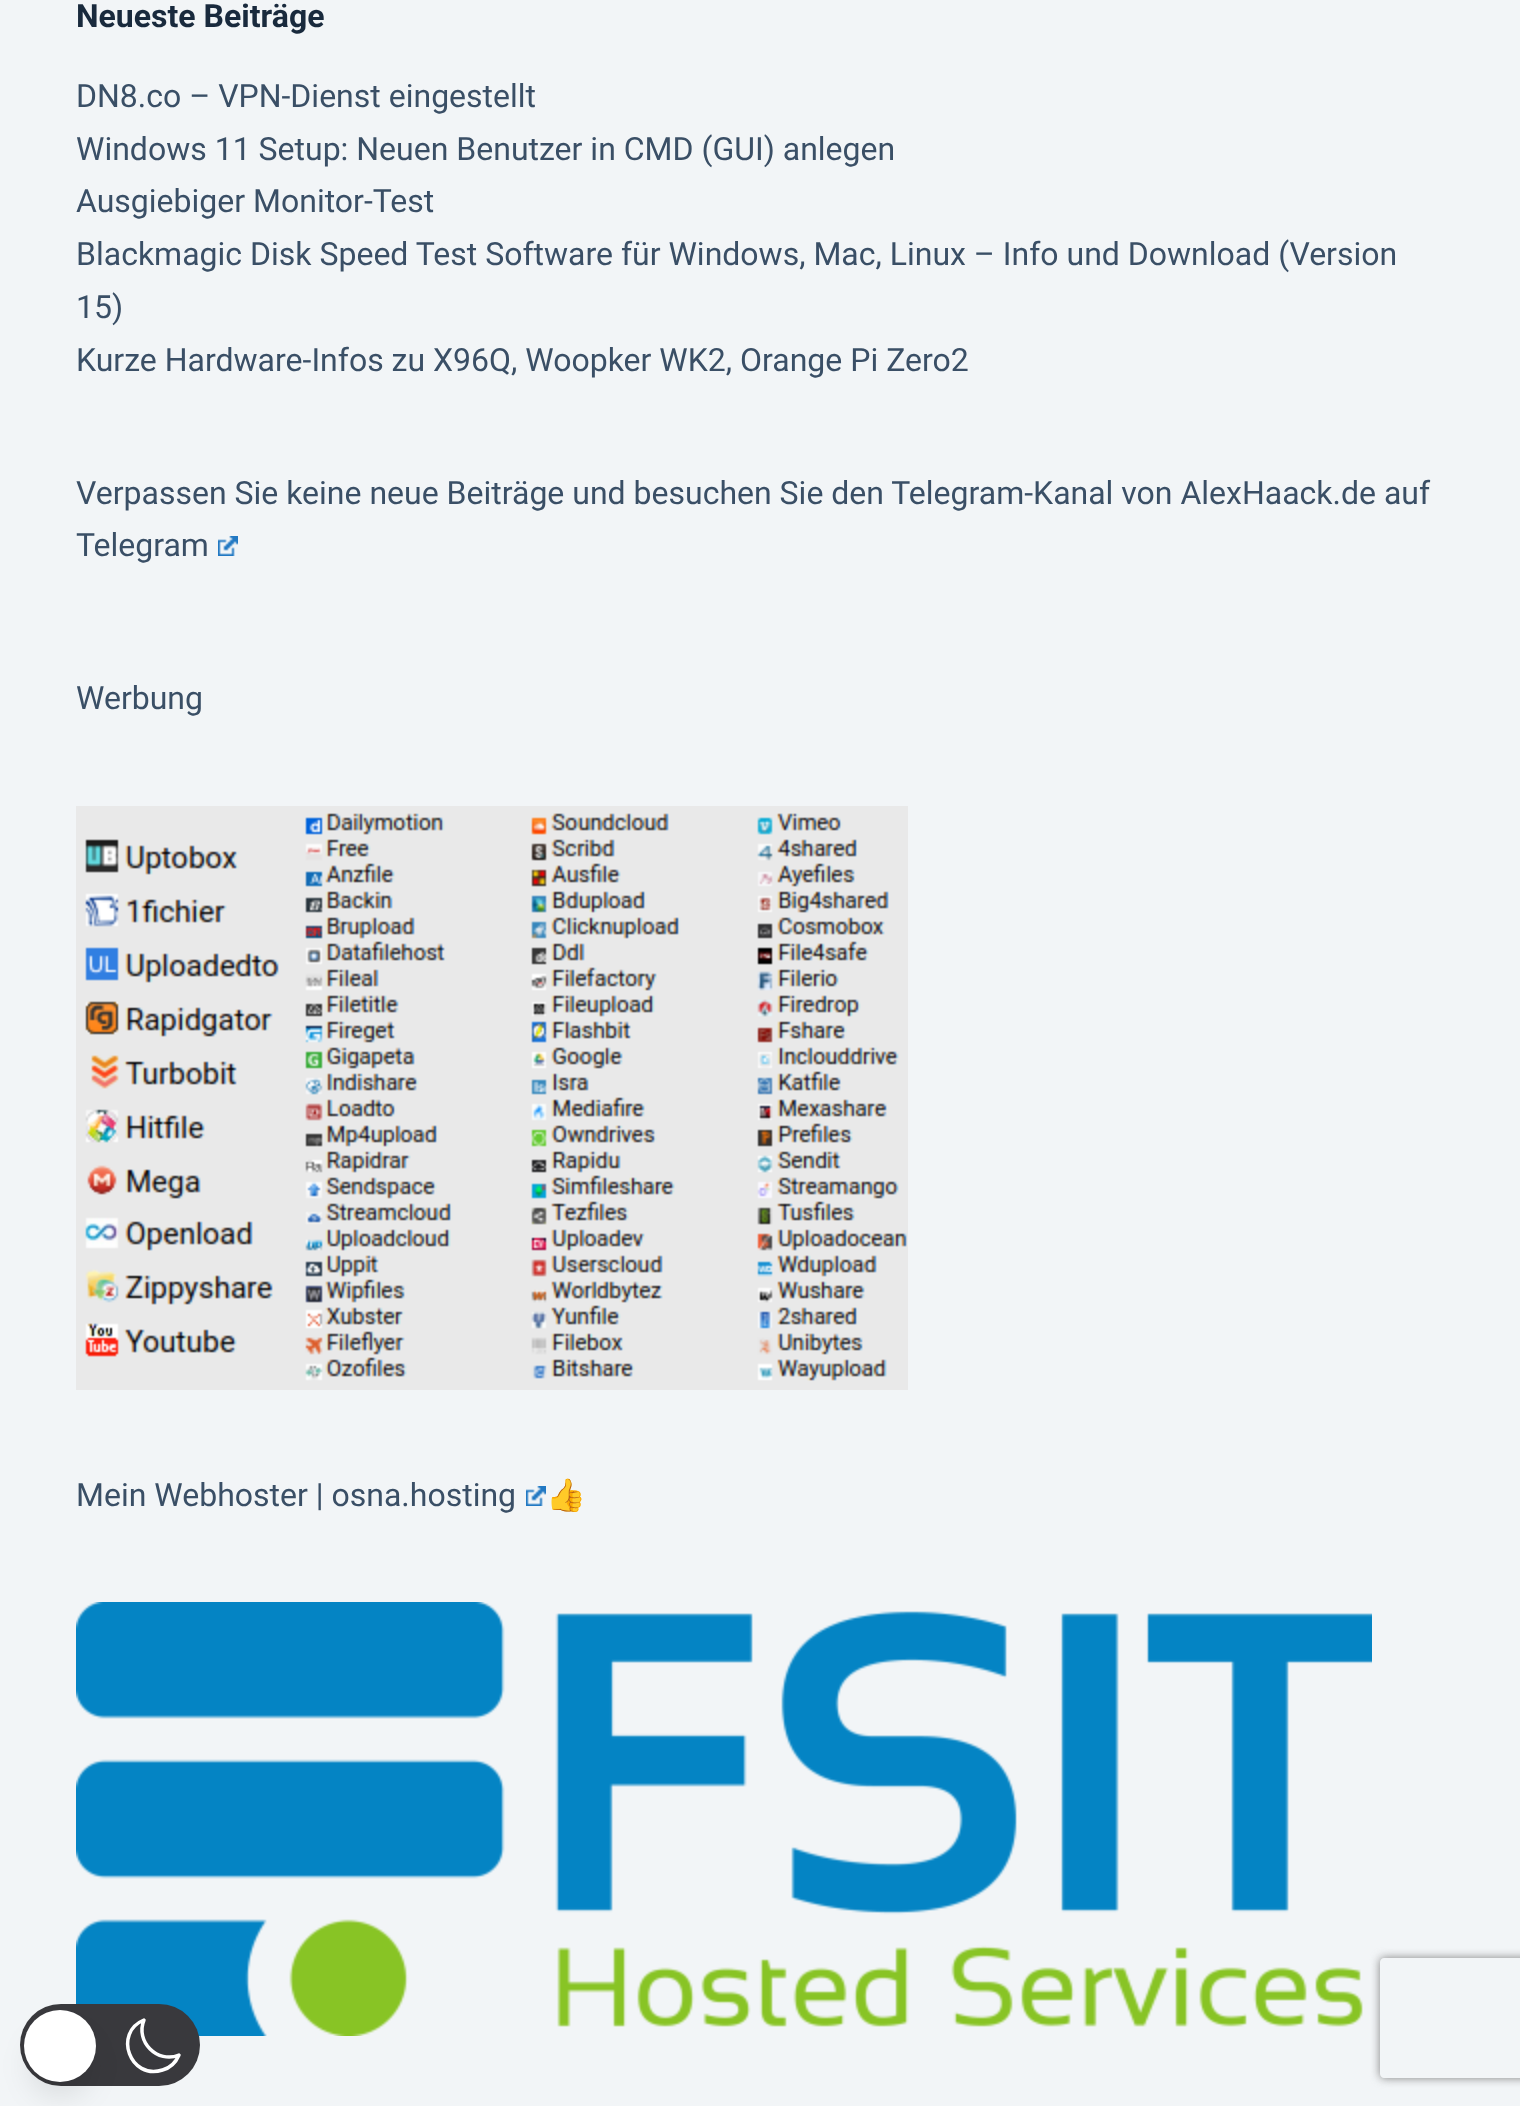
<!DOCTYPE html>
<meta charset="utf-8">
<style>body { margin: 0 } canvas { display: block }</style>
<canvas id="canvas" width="1520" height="2106"></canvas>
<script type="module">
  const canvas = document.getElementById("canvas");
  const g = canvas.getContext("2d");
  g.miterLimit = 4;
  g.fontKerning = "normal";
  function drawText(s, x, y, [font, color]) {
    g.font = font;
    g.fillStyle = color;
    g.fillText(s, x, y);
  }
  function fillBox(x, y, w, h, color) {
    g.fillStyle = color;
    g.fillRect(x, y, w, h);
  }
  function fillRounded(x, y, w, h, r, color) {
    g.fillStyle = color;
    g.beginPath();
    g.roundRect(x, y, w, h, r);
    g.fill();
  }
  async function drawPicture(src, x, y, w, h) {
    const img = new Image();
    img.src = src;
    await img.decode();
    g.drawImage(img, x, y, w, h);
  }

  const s1 = ["bold 32px Roboto", "#192A3D"];
  const s2 = ["32px Roboto", "#3A4F66"];
  const s3 = ["32px Noto Color Emoji", "#3A4F66"];

  fillBox(0, 0, 1520, 2106, "#F2F5F7");
  drawText("Neueste Beiträge", 76, 27, s1);
  drawText("DN8.co – VPN-Dienst eingestellt", 76, 107, s2);
  drawText("Windows 11 Setup: Neuen Benutzer in CMD (GUI) anlegen", 76, 160, s2);
  drawText("Ausgiebiger Monitor-Test", 76, 212, s2);
  drawText("Blackmagic Disk Speed Test Software für Windows, Mac, Linux – Info und Download (Version", 76, 265, s2);
  drawText("15)", 76, 318, s2);
  drawText("Kurze Hardware-Infos zu X96Q, Woopker WK2, Orange Pi Zero2", 76, 371, s2);
  drawText("Verpassen Sie keine neue Beiträge und besuchen Sie den Telegram-Kanal von AlexHaack.de auf", 76, 504, s2);
  drawText("Telegram", 76, 556, s2);
  await drawPicture("pic1.png", 218, 536, 20, 20);
  drawText("Werbung", 76, 709, s2);
  await drawPicture("pic2.png", 76, 806, 832, 584);
  drawText("Mein Webhoster | osna.hosting", 76, 1506, s2);
  await drawPicture("pic1.png", 526, 1486, 20, 20);
  drawText("👍", 546, 1506, s3);
  await drawPicture("pic3.png", 76, 1602, 1296, 434);
  fillRounded(20, 2004, 180, 82, 41, "#39393D");
  g.beginPath();
  g.moveTo(179, 2055);
  g.bezierCurveTo(157.5, 2064, 135, 2041.5, 144, 2020);
  g.bezierCurveTo(113, 2032.5, 130, 2080.5, 162.5, 2070);
  g.bezierCurveTo(170, 2068, 176, 2062, 179, 2055);
  g.closePath();
  g.strokeStyle = "#FFFFFF";
  g.lineWidth = 3.5;
  g.lineCap = "round";
  g.lineJoin = "round";
  g.stroke();
  g.fillStyle = "rgba(0, 0, 0, 0.1)";
  g.filter = "blur(15px)";
  g.beginPath();
  g.roundRect(30, 2036, 60, 60, 30);
  g.fill();
  g.filter = "none";
  g.fillStyle = "#FFFFFF";
  g.beginPath();
  g.arc(60, 2046, 36, 0, Math.PI * 2);
  g.fill();
  g.save();
  g.beginPath();
  g.moveTo(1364, 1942);
  g.lineTo(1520, 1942);
  g.lineTo(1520, 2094);
  g.lineTo(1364, 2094);
  g.closePath();
  g.moveTo(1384, 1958);
  g.lineTo(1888, 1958);
  g.bezierCurveTo(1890, 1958, 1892, 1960, 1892, 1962);
  g.lineTo(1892, 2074);
  g.bezierCurveTo(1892, 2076, 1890, 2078, 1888, 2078);
  g.lineTo(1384, 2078);
  g.bezierCurveTo(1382, 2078, 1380, 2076, 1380, 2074);
  g.lineTo(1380, 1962);
  g.bezierCurveTo(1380, 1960, 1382, 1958, 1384, 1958);
  g.closePath();
  g.clip("evenodd");
  g.fillStyle = "#808080";
  g.filter = "blur(5px)";
  g.beginPath();
  g.roundRect(1380, 1958, 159, 120, 4);
  g.fill();
  g.filter = "none";
  g.restore();
</script>
